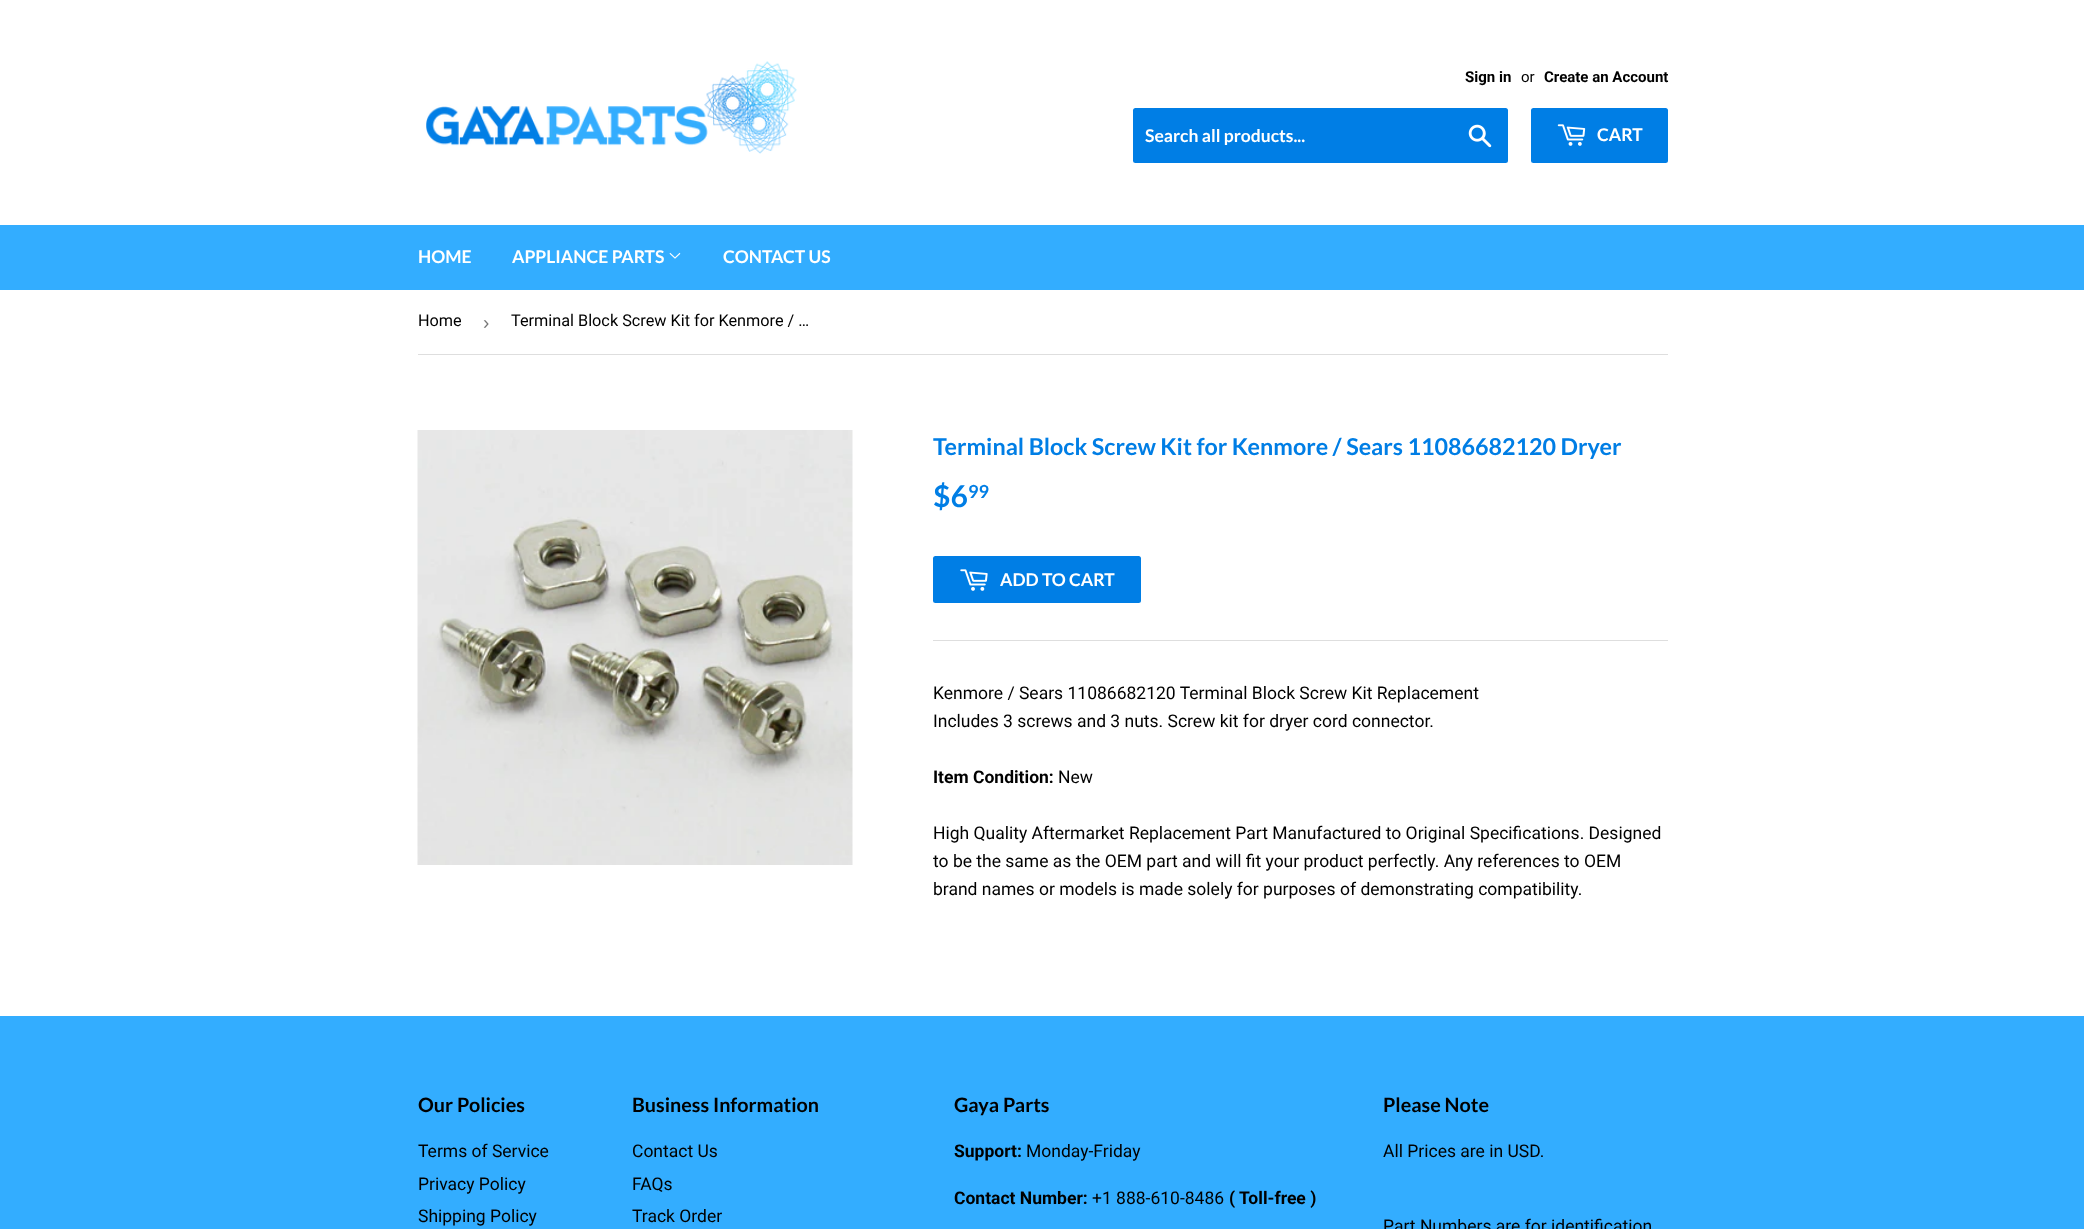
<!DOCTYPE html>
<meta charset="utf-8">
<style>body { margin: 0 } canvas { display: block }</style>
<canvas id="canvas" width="2084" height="1229"></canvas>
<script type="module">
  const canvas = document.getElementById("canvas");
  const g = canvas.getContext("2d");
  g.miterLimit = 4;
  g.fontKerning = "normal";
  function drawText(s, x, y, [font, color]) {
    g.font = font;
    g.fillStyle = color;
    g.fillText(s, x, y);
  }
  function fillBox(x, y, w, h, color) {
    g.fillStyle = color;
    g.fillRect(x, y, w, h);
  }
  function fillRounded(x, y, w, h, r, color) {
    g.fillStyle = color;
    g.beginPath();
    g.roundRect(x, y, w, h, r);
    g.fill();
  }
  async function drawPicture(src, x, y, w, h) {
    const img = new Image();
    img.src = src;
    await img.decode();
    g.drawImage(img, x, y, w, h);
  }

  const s1 = ["bold 15px Roboto", "#000000"];
  const s2 = ["15px Roboto", "#000000"];
  const s3 = ["bold 17.5px Lato", "#FFFFFF"];
  const s4 = ["16.25px Roboto", "#000000"];
  const s5 = ["19px Liberation Sans", "#767676"];
  const s6 = ["bold 23.3px Lato", "#007EE5"];
  const s7 = ["bold 30px Lato", "#007EE5"];
  const s8 = ["bold 18px Lato", "#007EE5"];
  const s9 = ["17.5px Roboto", "#000000"];
  const s10 = ["bold 17.5px Roboto", "#000000"];
  const s11 = ["bold 19.75px Lato", "#000000"];

  fillBox(0, 0, 2084, 1229, "#FFFFFF");
  await drawPicture("pic1.png", 426, 61, 371, 93);
  drawText("Sign in", 1465, 82, s1);
  drawText("or", 1521, 82, s2);
  drawText("Create an Account", 1544, 82, s1);
  fillRounded(1133, 108, 375, 55, 2.5, "#007EE5");
  drawText("Search all products...", 1145, 142, s3);
  await drawPicture("pic2.png", 1468, 124, 24, 24);
  fillRounded(1531, 108, 137, 55, 2.5, "#007EE5");
  await drawPicture("pic3.png", 1557, 124, 29, 22);
  drawText("CART", 1597, 141, s3);
  fillBox(0, 225, 2084, 65, "#33ADFF");
  drawText("HOME", 418, 263, s3);
  drawText("APPLIANCE PARTS", 512, 263, s3);
  await drawPicture("pic4.png", 669, 252, 12, 7);
  drawText("CONTACT US", 723, 263, s3);
  fillBox(418, 354, 1250, 1, "#DEDEDE");
  drawText("Home", 418, 326, s4);
  drawText("›", 483, 329, s5);
  drawText("Terminal Block Screw Kit for Kenmore / …", 511, 326, s4);
  await drawPicture("pic5.png", 417, 430, 436, 435);
  drawText("Terminal Block Screw Kit for Kenmore / Sears 11086682120 Dryer", 933, 455, s6);
  drawText("$6", 933, 507, s7);
  drawText("99", 968, 498, s8);
  fillRounded(933, 556, 208, 47, 2.5, "#007EE5");
  await drawPicture("pic6.png", 960, 569, 28, 22);
  drawText("ADD TO CART", 1000, 586, s3);
  fillBox(933, 640, 735, 1, "#DEDEDE");
  drawText("Kenmore / Sears 11086682120 Terminal Block Screw Kit Replacement", 933, 699, s9);
  drawText("Includes 3 screws and 3 nuts. Screw kit for dryer cord connector.", 933, 727, s9);
  drawText("Item Condition:", 933, 783, s10);
  drawText("New", 1058, 783, s9);
  drawText("High Quality Aftermarket Replacement Part Manufactured to Original Specifications. Designed", 933, 839, s9);
  drawText("to be the same as the OEM part and will fit your product perfectly. Any references to OEM", 933, 867, s9);
  drawText("brand names or models is made solely for purposes of demonstrating compatibility.", 933, 895, s9);
  fillBox(0, 1016, 2084, 213, "#33ADFF");
  drawText("Our Policies", 418, 1112, s11);
  drawText("Terms of Service", 418, 1157, s9);
  drawText("Privacy Policy", 418, 1190, s9);
  drawText("Shipping Policy", 418, 1222, s9);
  drawText("Business Information", 632, 1112, s11);
  drawText("Contact Us", 632, 1157, s9);
  drawText("FAQs", 632, 1190, s9);
  drawText("Track Order", 632, 1222, s9);
  drawText("Gaya Parts", 954, 1112, s11);
  drawText("Support:", 954, 1157, s10);
  drawText("Monday-Friday", 1026, 1157, s9);
  drawText("Contact Number:", 954, 1204, s10);
  drawText("+1 888-610-8486", 1092, 1204, s9);
  drawText("( Toll-free )", 1229, 1204, s10);
  drawText("Please Note", 1383, 1112, s11);
  drawText("All Prices are in USD.", 1383, 1157, s9);
  drawText("Part Numbers are for identification", 1383, 1232, s9);
</script>
